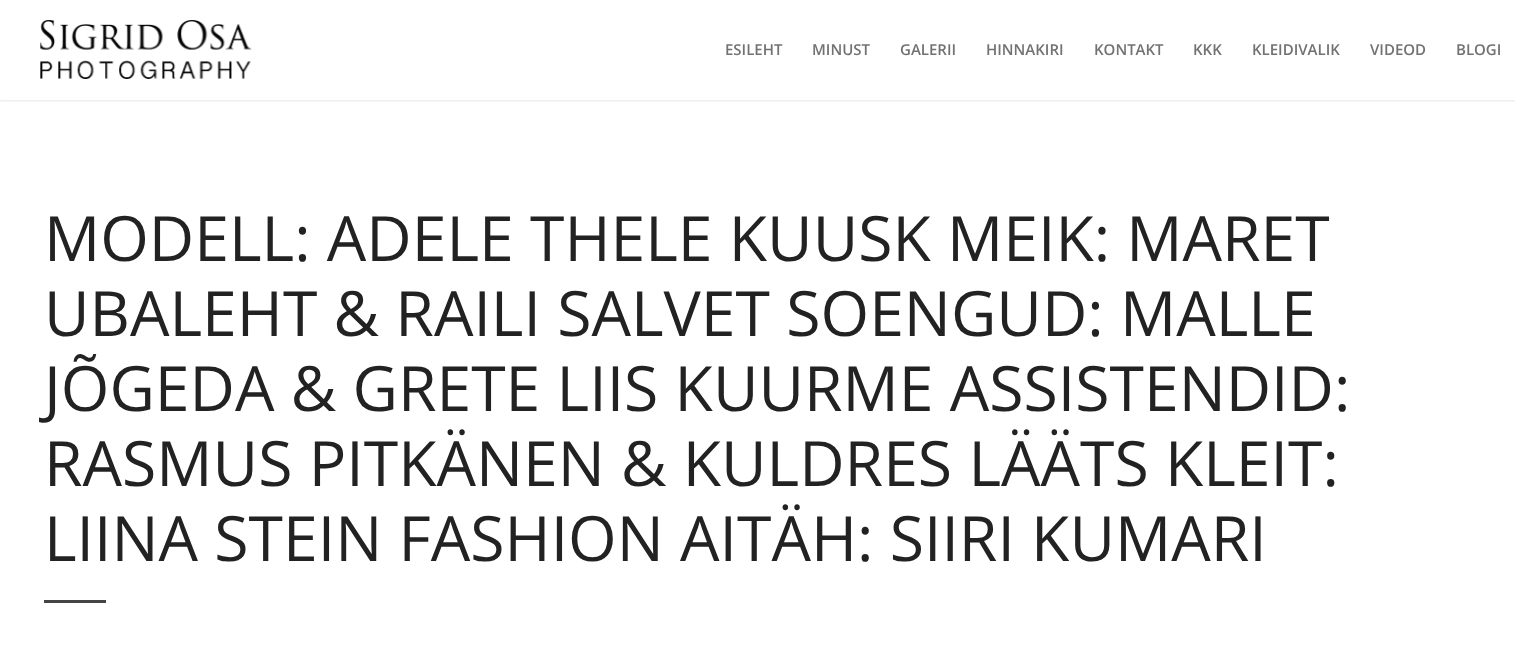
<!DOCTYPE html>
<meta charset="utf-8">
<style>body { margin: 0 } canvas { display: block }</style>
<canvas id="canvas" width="1515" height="648"></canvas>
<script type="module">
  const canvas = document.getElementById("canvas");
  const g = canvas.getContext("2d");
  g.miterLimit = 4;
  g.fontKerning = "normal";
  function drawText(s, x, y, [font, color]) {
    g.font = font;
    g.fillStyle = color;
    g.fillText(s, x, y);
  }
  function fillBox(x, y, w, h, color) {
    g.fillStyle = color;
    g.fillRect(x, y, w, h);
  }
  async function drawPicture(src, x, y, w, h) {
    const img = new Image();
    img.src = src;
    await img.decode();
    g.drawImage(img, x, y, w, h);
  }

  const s1 = ["600 15px Open Sans", "#727272"];
  const s2 = ["62.5px Open Sans", "#222222"];

  fillBox(0, 0, 1515, 648, "#FFFFFF");
  g.save();
  g.beginPath();
  g.rect(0, 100, 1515, 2);
  g.clip();
  g.fillStyle = "rgba(0, 0, 0, 0.1)";
  g.filter = "blur(1px)";
  g.beginPath();
  g.rect(-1, -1, 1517, 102);
  g.fill();
  g.filter = "none";
  g.restore();
  await drawPicture("pic1.png", 40, 20, 212, 59);
  drawText("ESILEHT", 725, 55, s1);
  drawText("MINUST", 812, 55, s1);
  drawText("GALERII", 900, 55, s1);
  drawText("HINNAKIRI", 986, 55, s1);
  drawText("KONTAKT", 1094, 55, s1);
  drawText("KKK", 1193, 55, s1);
  drawText("KLEIDIVALIK", 1252, 55, s1);
  drawText("VIDEOD", 1370, 55, s1);
  drawText("BLOGI", 1456, 55, s1);
  drawText("MODELL: ADELE THELE KUUSK MEIK: MARET", 44, 261, s2);
  drawText("UBALEHT & RAILI SALVET SOENGUD: MALLE", 44, 336, s2);
  drawText("JÕGEDA & GRETE LIIS KUURME ASSISTENDID:", 44, 411, s2);
  drawText("RASMUS PITKÄNEN & KULDRES LÄÄTS KLEIT:", 44, 486, s2);
  drawText("LIINA STEIN FASHION AITÄH: SIIRI KUMARI", 44, 561, s2);
  fillBox(44, 600, 62, 3, "#444444");
</script>
